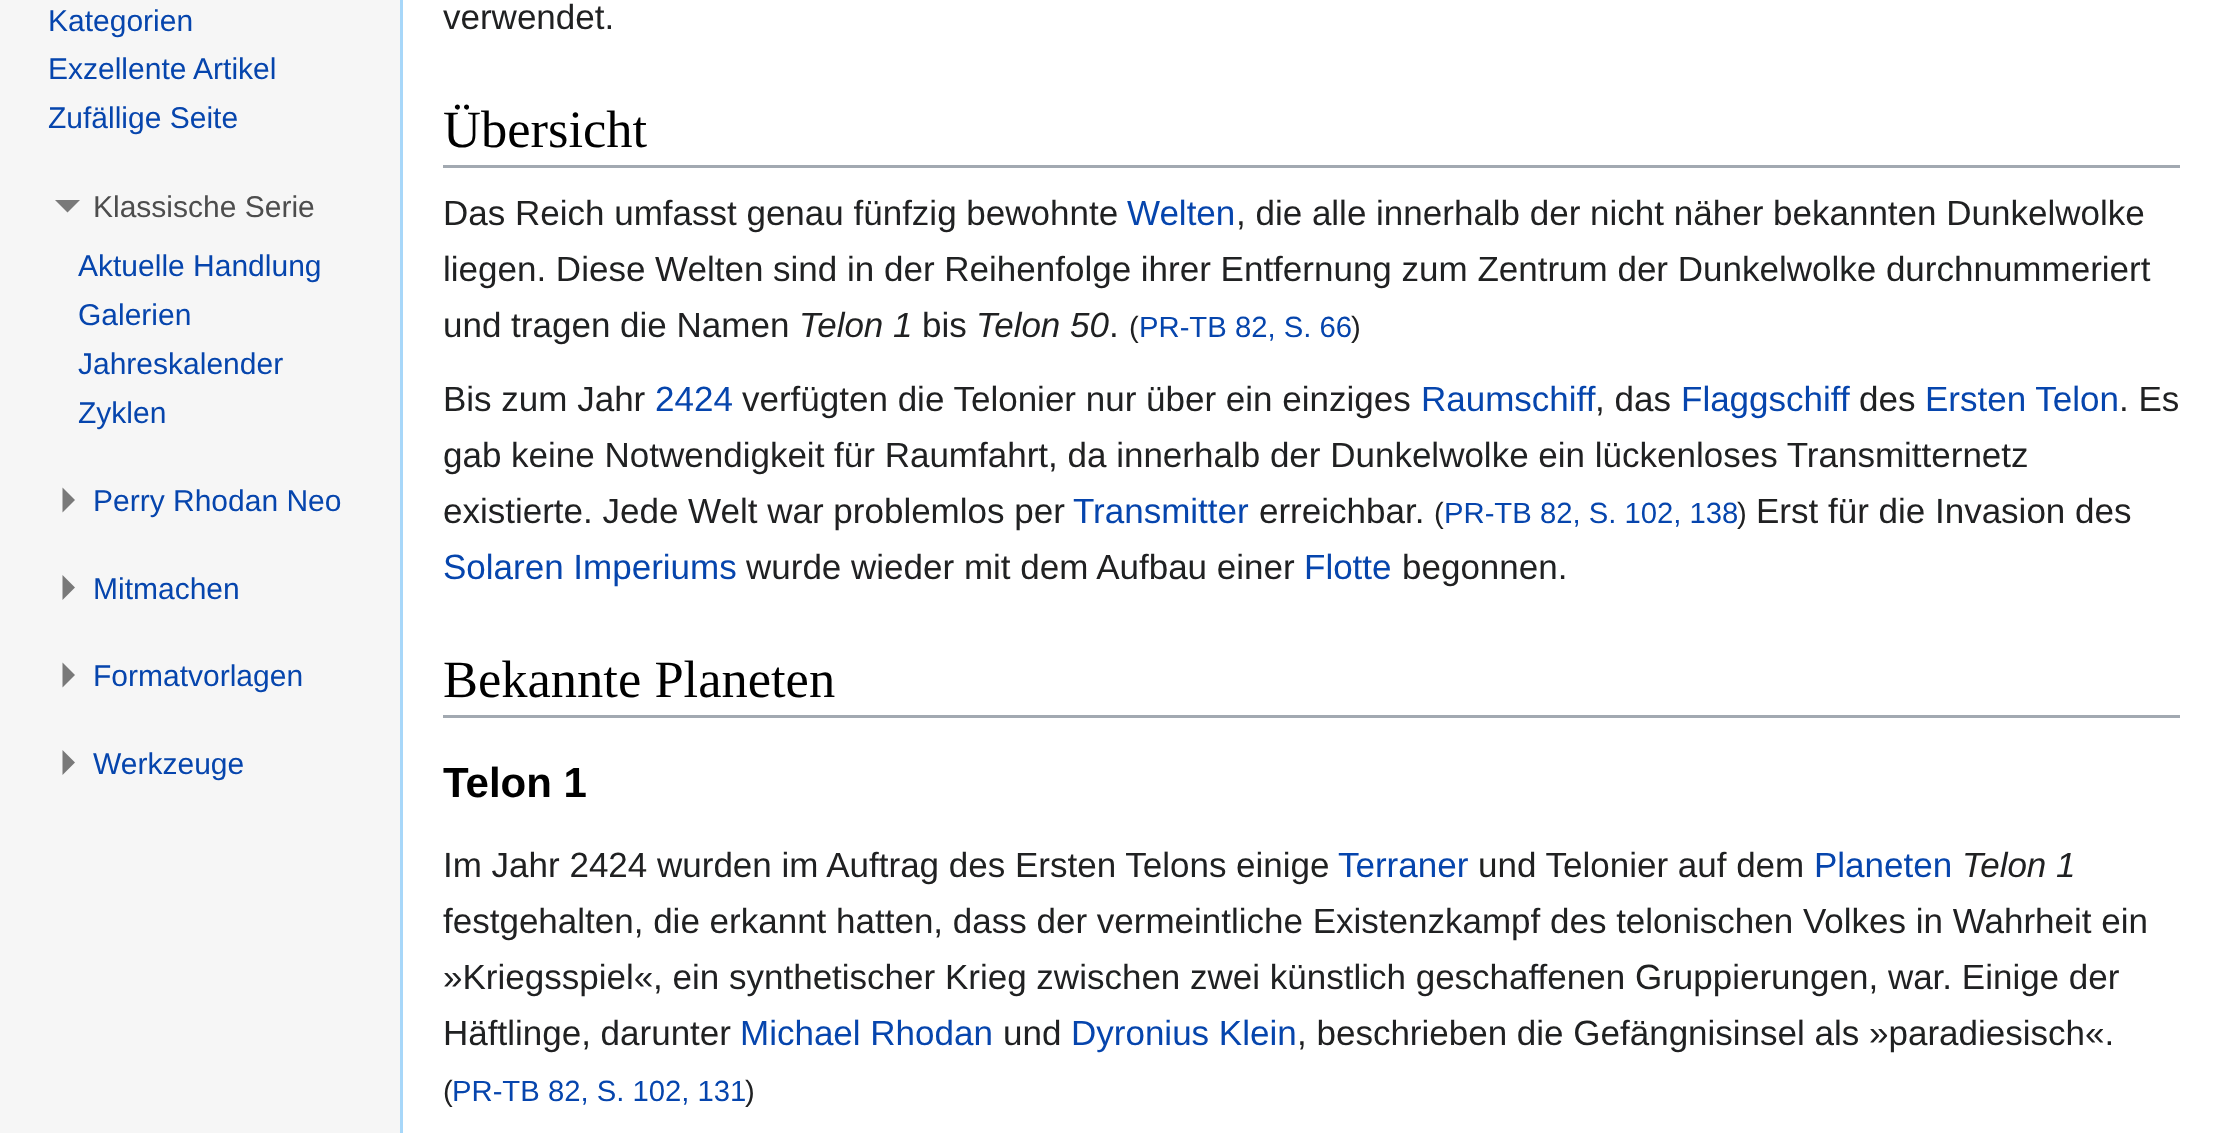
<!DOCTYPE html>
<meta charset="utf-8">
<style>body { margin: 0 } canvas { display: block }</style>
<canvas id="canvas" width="2218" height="1133"></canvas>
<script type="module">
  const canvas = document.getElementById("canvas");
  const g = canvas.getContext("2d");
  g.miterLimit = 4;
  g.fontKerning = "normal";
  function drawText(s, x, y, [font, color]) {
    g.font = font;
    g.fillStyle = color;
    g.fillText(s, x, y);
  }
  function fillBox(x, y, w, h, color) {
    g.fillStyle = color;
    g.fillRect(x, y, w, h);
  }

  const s1 = ["30px Liberation Sans", "#0645AD"];
  const s2 = ["30px Liberation Sans", "#4D4D4D"];
  const s3 = ["35px Liberation Sans", "#202122"];
  const s4 = ["52.5px Liberation Serif", "#000000"];
  const s5 = ["35px Liberation Sans", "#0645AD"];
  const s6 = ["italic 35px Liberation Sans", "#202122"];
  const s7 = ["29.25px Liberation Sans", "#202122"];
  const s8 = ["29.25px Liberation Sans", "#0645AD"];
  const s9 = ["bold 42px Liberation Sans", "#000000"];

  fillBox(0, 0, 2218, 1133, "#F6F6F6");
  drawText("Kategorien", 48, 31, s1);
  drawText("Exzellente Artikel", 48, 79, s1);
  drawText("Zufällige Seite", 48, 128, s1);
  g.fillStyle = "#797979";
  g.beginPath();
  g.moveTo(80, 200);
  g.lineTo(67.5, 212.5);
  g.lineTo(55, 200);
  g.closePath();
  g.fill();
  drawText("Klassische Serie", 93, 217, s2);
  drawText("Aktuelle Handlung", 78, 276, s1);
  drawText("Galerien", 78, 325, s1);
  drawText("Jahreskalender", 78, 374, s1);
  drawText("Zyklen", 78, 423, s1);
  g.fillStyle = "#797979";
  g.beginPath();
  g.moveTo(62.5, 487.5);
  g.lineTo(75, 500);
  g.lineTo(62.5, 512.5);
  g.closePath();
  g.fill();
  drawText("Perry Rhodan Neo", 93, 511, s1);
  g.fillStyle = "#797979";
  g.beginPath();
  g.moveTo(62.5, 575);
  g.lineTo(75, 587.5);
  g.lineTo(62.5, 600);
  g.closePath();
  g.fill();
  drawText("Mitmachen", 93, 599, s1);
  g.fillStyle = "#797979";
  g.beginPath();
  g.moveTo(62.5, 662.5);
  g.lineTo(75, 675);
  g.lineTo(62.5, 687.5);
  g.closePath();
  g.fill();
  drawText("Formatvorlagen", 93, 686, s1);
  g.fillStyle = "#797979";
  g.beginPath();
  g.moveTo(62.5, 750);
  g.lineTo(75, 762.5);
  g.lineTo(62.5, 775);
  g.closePath();
  g.fill();
  drawText("Werkzeuge", 93, 774, s1);
  fillBox(403, 0, 1815, 1133, "#FFFFFF");
  fillBox(400, 0, 3, 1133, "#A7D7F9");
  drawText("verwendet.", 443, 29, s3);
  fillBox(443, 165, 1737, 3, "#A2A9B1");
  drawText("Übersicht", 443, 147, s4);
  drawText("Das Reich umfasst genau fünfzig bewohnte", 443, 225, s3);
  drawText("Welten", 1127, 225, s5);
  drawText(", die alle innerhalb der nicht näher bekannten Dunkelwolke", 1236, 225, s3);
  drawText("liegen. Diese Welten sind in der Reihenfolge ihrer Entfernung zum Zentrum der Dunkelwolke durchnummeriert", 443, 281, s3);
  drawText("und tragen die Namen", 443, 337, s3);
  drawText("Telon 1", 799, 337, s6);
  drawText("bis", 922, 337, s3);
  drawText("Telon 50", 976, 337, s6);
  drawText(".", 1109, 337, s3);
  drawText("(", 1129, 337, s7);
  drawText("PR-TB 82, S. 66", 1139, 337, s8);
  drawText(")", 1351, 337, s7);
  drawText("Bis zum Jahr", 443, 411, s3);
  drawText("2424", 655, 411, s5);
  drawText("verfügten die Telonier nur über ein einziges", 742, 411, s3);
  drawText("Raumschiff", 1421, 411, s5);
  drawText(", das", 1595, 411, s3);
  drawText("Flaggschiff", 1681, 411, s5);
  drawText("des", 1859, 411, s3);
  drawText("Ersten Telon", 1925, 411, s5);
  drawText(". Es", 2119, 411, s3);
  drawText("gab keine Notwendigkeit für Raumfahrt, da innerhalb der Dunkelwolke ein lückenloses Transmitternetz", 443, 467, s3);
  drawText("existierte. Jede Welt war problemlos per", 443, 523, s3);
  drawText("Transmitter", 1073, 523, s5);
  drawText("erreichbar.", 1259, 523, s3);
  drawText("(", 1434, 523, s7);
  drawText("PR-TB 82, S. 102, 138", 1444, 523, s8);
  drawText(")", 1737, 523, s7);
  drawText("Erst für die Invasion des", 1756, 523, s3);
  drawText("Solaren Imperiums", 443, 579, s5);
  drawText("wurde wieder mit dem Aufbau einer", 746, 579, s3);
  drawText("Flotte", 1304, 579, s5);
  drawText("begonnen.", 1402, 579, s3);
  fillBox(443, 715, 1737, 3, "#A2A9B1");
  drawText("Bekannte Planeten", 443, 697, s4);
  drawText("Telon 1", 443, 797, s9);
  drawText("Im Jahr 2424 wurden im Auftrag des Ersten Telons einige", 443, 877, s3);
  drawText("Terraner", 1338, 877, s5);
  drawText("und Telonier auf dem", 1478, 877, s3);
  drawText("Planeten", 1814, 877, s5);
  drawText("Telon 1", 1962, 877, s6);
  drawText("festgehalten, die erkannt hatten, dass der vermeintliche Existenzkampf des telonischen Volkes in Wahrheit ein", 443, 933, s3);
  drawText("»Kriegsspiel«, ein synthetischer Krieg zwischen zwei künstlich geschaffenen Gruppierungen, war. Einige der", 443, 989, s3);
  drawText("Häftlinge, darunter", 443, 1045, s3);
  drawText("Michael Rhodan", 740, 1045, s5);
  drawText("und", 1003, 1045, s3);
  drawText("Dyronius Klein", 1071, 1045, s5);
  drawText(", beschrieben die Gefängnisinsel als »paradiesisch«.", 1297, 1045, s3);
  drawText("(", 443, 1101, s7);
  drawText("PR-TB 82, S. 102, 131", 452, 1101, s8);
  drawText(")", 745, 1101, s7);
</script>
